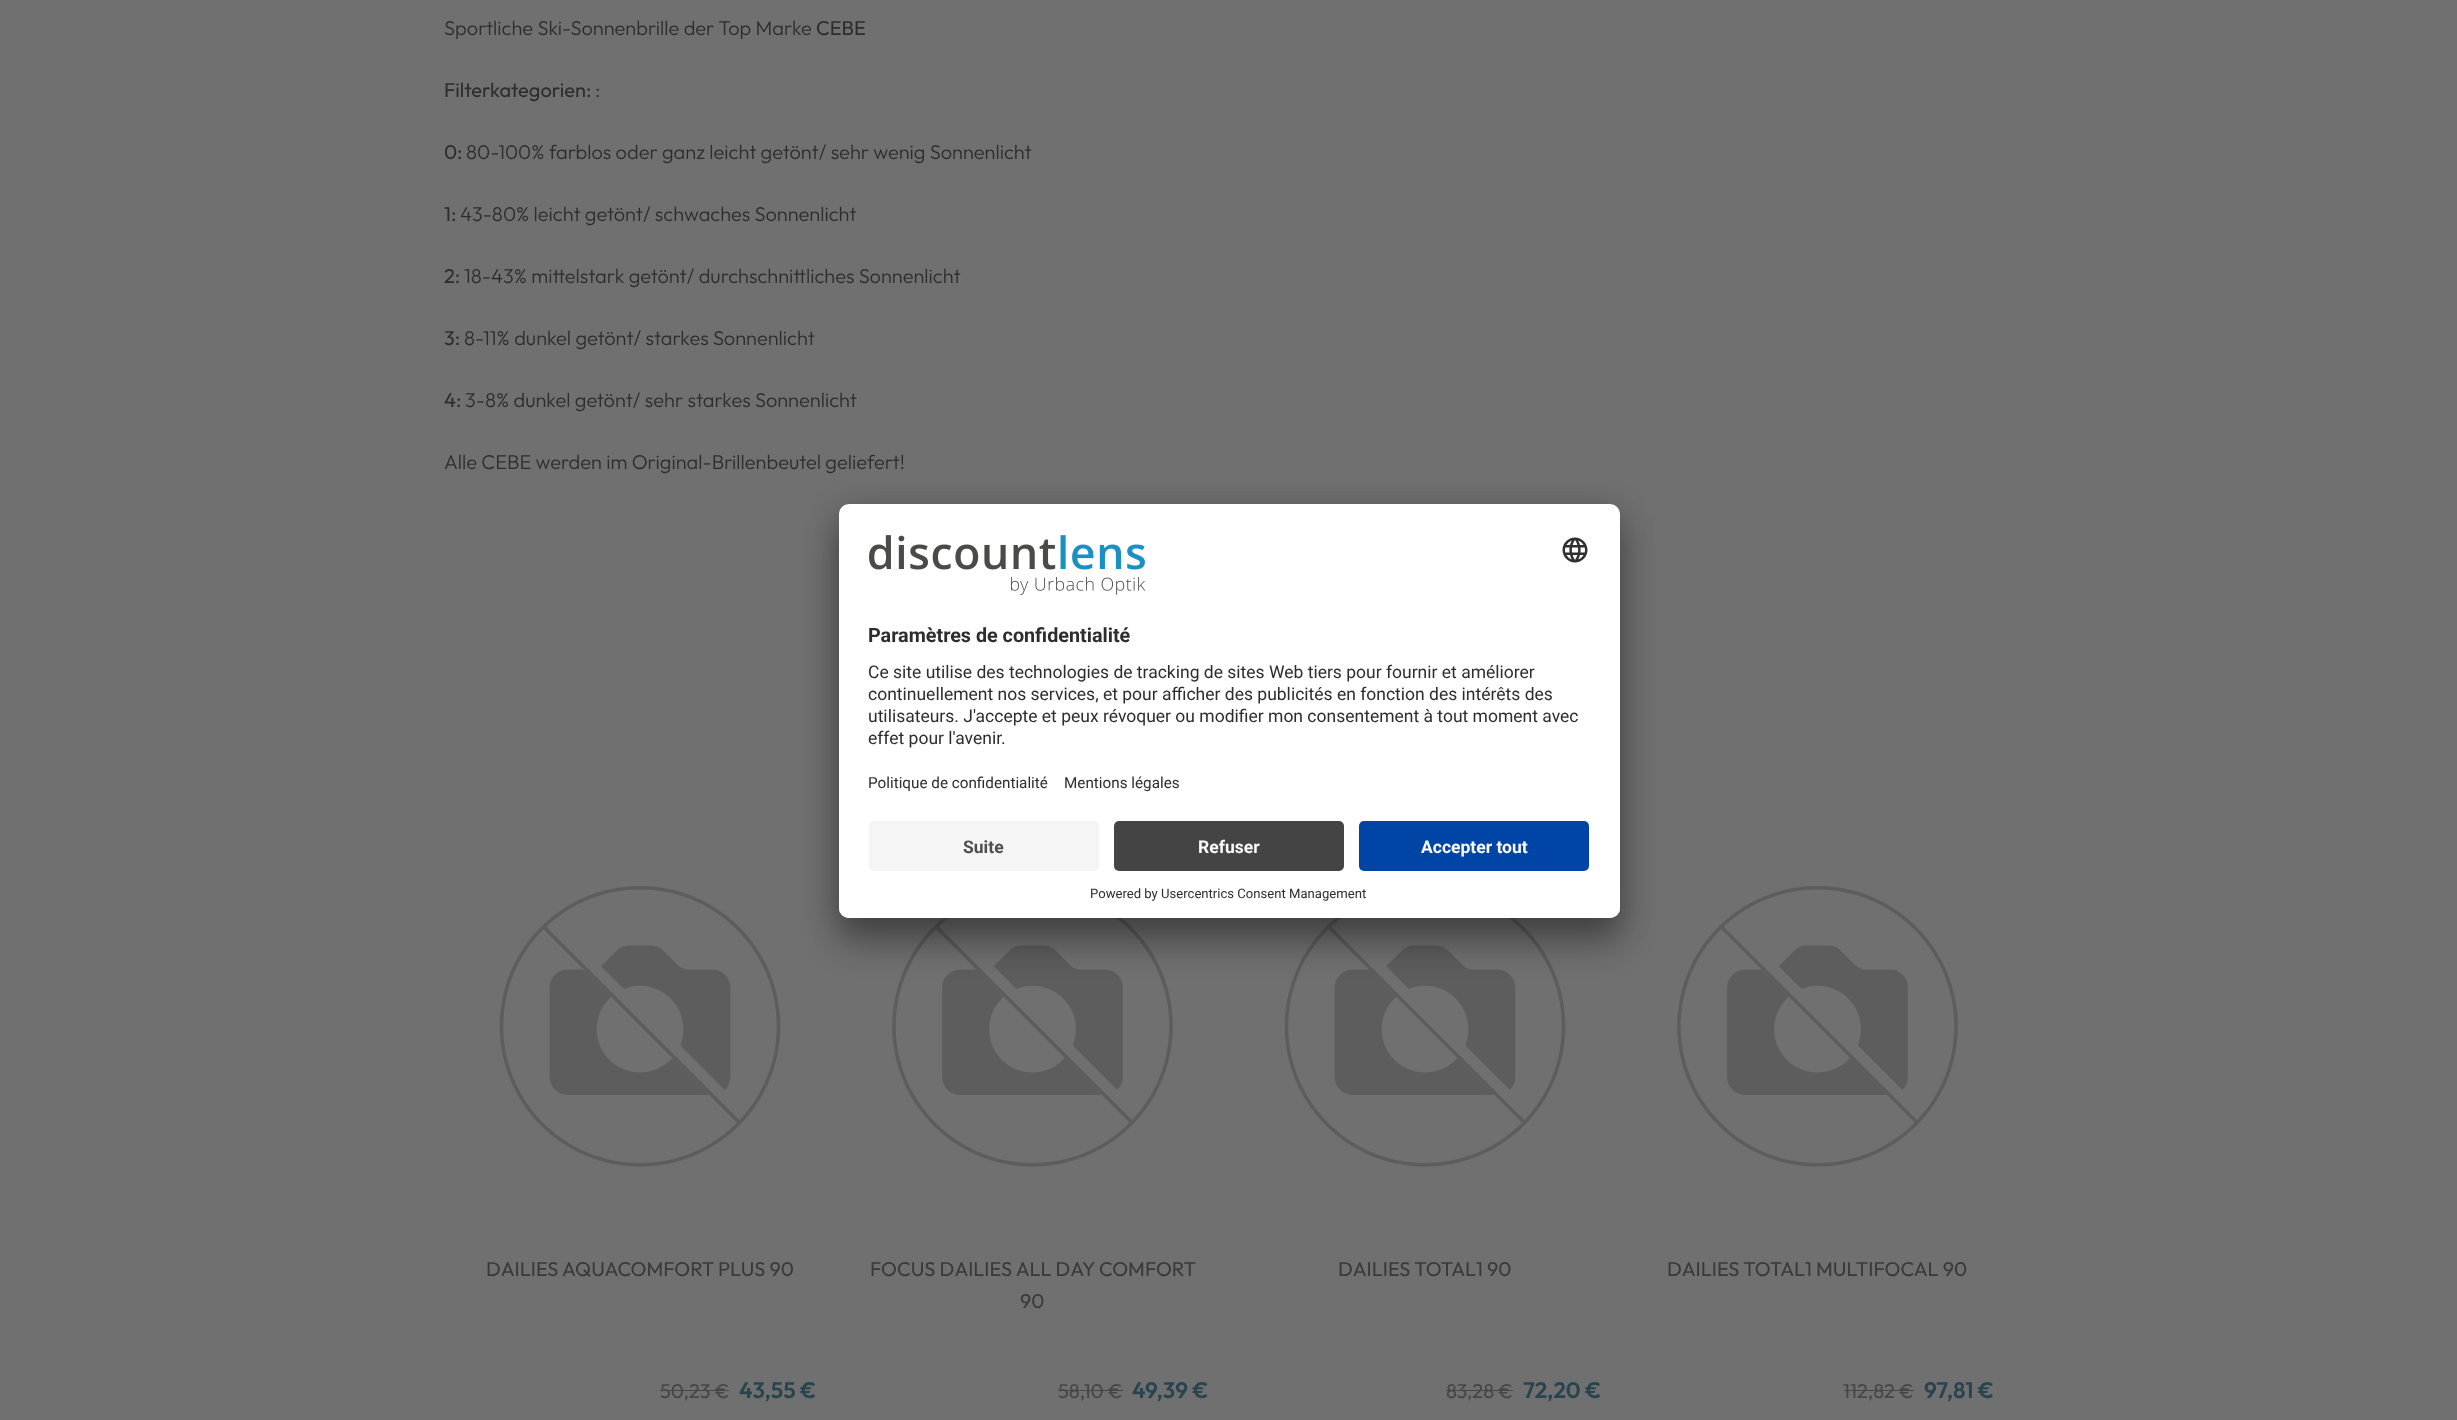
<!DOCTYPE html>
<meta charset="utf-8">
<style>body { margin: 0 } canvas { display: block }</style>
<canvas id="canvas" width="2457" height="1420"></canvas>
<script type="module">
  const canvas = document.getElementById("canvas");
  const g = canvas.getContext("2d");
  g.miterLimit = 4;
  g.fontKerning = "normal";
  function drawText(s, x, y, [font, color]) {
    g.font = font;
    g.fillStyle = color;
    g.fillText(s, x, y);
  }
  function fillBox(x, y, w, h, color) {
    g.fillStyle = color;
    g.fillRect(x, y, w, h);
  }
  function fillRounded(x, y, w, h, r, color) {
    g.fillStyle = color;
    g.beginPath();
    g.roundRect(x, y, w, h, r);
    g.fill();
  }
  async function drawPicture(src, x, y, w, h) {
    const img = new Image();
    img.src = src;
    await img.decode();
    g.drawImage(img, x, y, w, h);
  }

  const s1 = ["300 20px Outfit", "#2C2D2E"];
  const s2 = ["20px Outfit", "#2C2D2E"];
  const s3 = ["20px Outfit", "#38393B"];
  const s4 = ["20px Outfit", "#444749"];
  const s5 = ["600 22.5px Outfit", "#29444F"];
  const s6 = ["bold 19.75px Roboto", "#2C2D2E"];
  const s7 = ["17.5px Roboto", "#2C2D2E"];
  const s8 = ["15.25px Roboto", "#2C2D2E"];
  const s9 = ["bold 17.5px Roboto", "#4E4E4E"];
  const s10 = ["bold 17.5px Roboto", "#FAFAFA"];
  const s11 = ["13.1px Roboto", "#2C2D2E"];

  fillBox(0, 0, 2457, 1420, "#707070");
  drawText("Sportliche Ski-Sonnenbrille der Top Marke", 444, 35, s1);
  drawText("CEBE", 816, 35, s2);
  drawText("Filterkategorien:", 444, 97, s2);
  drawText(":", 595, 97, s1);
  drawText("0:", 444, 159, s2);
  drawText("80-100% farblos oder ganz leicht getönt/ sehr wenig Sonnenlicht", 466, 159, s1);
  drawText("1:", 444, 221, s2);
  drawText("43-80% leicht getönt/ schwaches Sonnenlicht", 460, 221, s1);
  drawText("2:", 444, 283, s2);
  drawText("18-43% mittelstark getönt/ durchschnittliches Sonnenlicht", 464, 283, s1);
  drawText("3:", 444, 345, s2);
  drawText("8-11% dunkel getönt/ starkes Sonnenlicht", 464, 345, s1);
  drawText("4:", 444, 407, s2);
  drawText("3-8% dunkel getönt/ sehr starkes Sonnenlicht", 465, 407, s1);
  drawText("Alle CEBE werden im Original-Brillenbeutel geliefert!", 444, 469, s1);
  await drawPicture("pic1.png", 499, 886, 282, 281);
  drawText("DAILIES AQUACOMFORT PLUS 90", 486, 1276, s3);
  drawText("50,23 €", 660, 1398, s4);
  fillBox(660, 1390, 69, 1, "#444749");
  drawText("43,55 €", 739, 1398, s5);
  await drawPicture("pic2.png", 892, 918, 281, 249);
  drawText("FOCUS DAILIES ALL DAY COMFORT", 870, 1276, s3);
  drawText("90", 1020, 1308, s3);
  drawText("58,10 €", 1058, 1398, s4);
  fillBox(1058, 1390, 65, 1, "#444749");
  drawText("49,39 €", 1132, 1398, s5);
  await drawPicture("pic3.png", 1284, 918, 282, 249);
  drawText("DAILIES TOTAL1 90", 1338, 1276, s3);
  drawText("83,28 €", 1446, 1398, s4);
  fillBox(1446, 1390, 67, 1, "#444749");
  drawText("72,20 €", 1523, 1398, s5);
  await drawPicture("pic4.png", 1677, 886, 281, 281);
  drawText("DAILIES TOTAL1 MULTIFOCAL 90", 1667, 1276, s3);
  drawText("112,82 €", 1843, 1398, s4);
  fillBox(1844, 1390, 70, 1, "#444749");
  drawText("97,81 €", 1924, 1398, s5);
  g.fillStyle = "rgba(0, 0, 0, 0.3)";
  g.filter = "blur(17.5px)";
  g.beginPath();
  g.roundRect(839, 529, 781, 414, 10);
  g.fill();
  g.filter = "none";
  g.fillStyle = "rgba(0, 0, 0, 0.22)";
  g.filter = "blur(16px)";
  g.beginPath();
  g.roundRect(839, 510, 781, 414, 10);
  g.fill();
  g.filter = "none";
  fillRounded(839, 504, 781, 414, 10, "#FFFFFF");
  g.save();
  g.beginPath();
  g.roundRect(839, 504, 781, 414, 10);
  g.clip();
  g.beginPath();
  g.roundRect(839, 504, 781, 307, [10, 10, 0, 0]);
  g.clip();
  fillBox(839, 505, 781, 306, "#FFFFFF");
  g.restore();
  await drawPicture("pic5.png", 869, 535, 276, 60);
  await drawPicture("pic6.png", 1562, 537, 26, 26);
  drawText("Paramètres de confidentialité", 868, 642, s6);
  drawText("Ce site utilise des technologies de tracking de sites Web tiers pour fournir et améliorer", 868, 678, s7);
  drawText("continuellement nos services, et pour afficher des publicités en fonction des intérêts des", 868, 700, s7);
  drawText("utilisateurs. J'accepte et peux révoquer ou modifier mon consentement à tout moment avec", 868, 722, s7);
  drawText("effet pour l'avenir.", 868, 744, s7);
  drawText("Politique de confidentialité", 868, 788, s8);
  drawText("Mentions légales", 1064, 788, s8);
  g.fillStyle = "#FFFFFF";
  g.beginPath();
  g.roundRect(839, 811, 781, 107, [0, 0, 10, 10]);
  g.fill();
  fillRounded(869, 821, 230, 50, 5, "#F5F5F5");
  drawText("Suite", 963, 853, s9);
  fillRounded(1114, 821, 230, 50, 5, "#444444");
  drawText("Refuser", 1198, 853, s10);
  fillRounded(1359, 821, 230, 50, 5, "#0045A5");
  drawText("Accepter tout", 1421, 853, s10);
  drawText("Powered by Usercentrics Consent Management", 1090, 898, s11);
</script>
